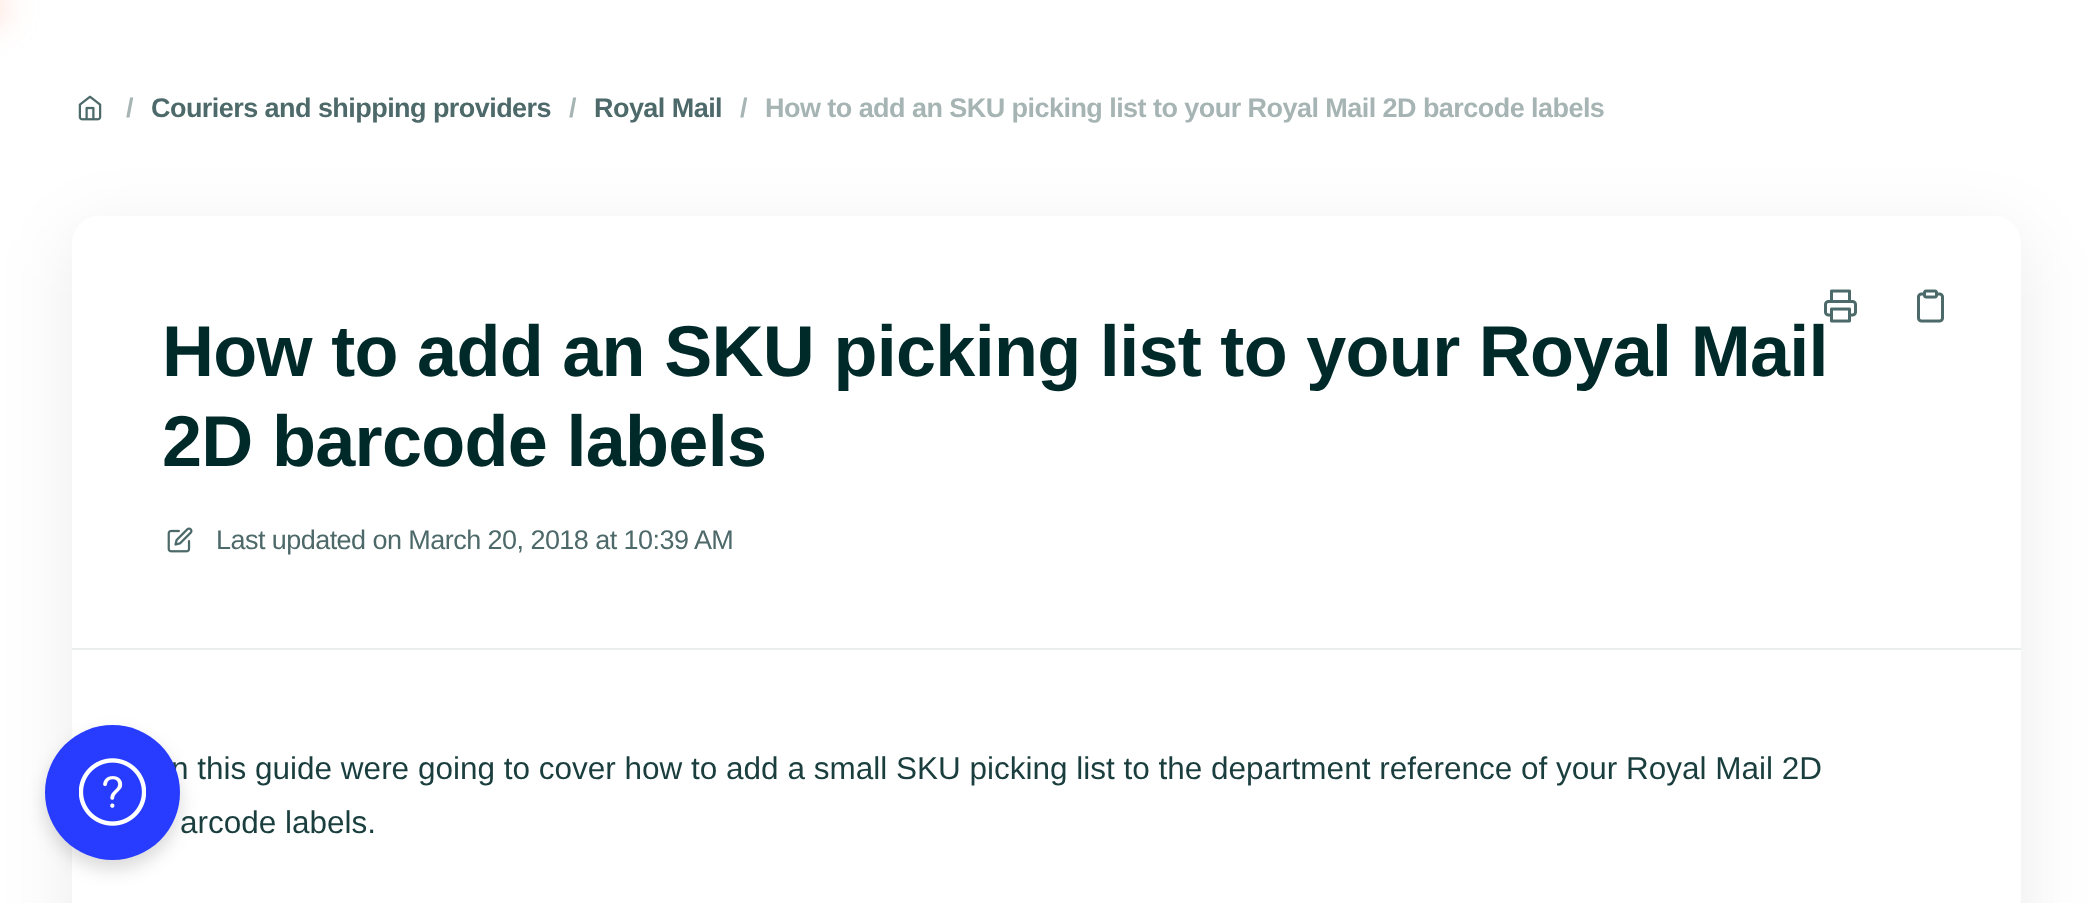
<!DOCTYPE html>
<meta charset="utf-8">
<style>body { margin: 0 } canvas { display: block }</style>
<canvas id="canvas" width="2092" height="903"></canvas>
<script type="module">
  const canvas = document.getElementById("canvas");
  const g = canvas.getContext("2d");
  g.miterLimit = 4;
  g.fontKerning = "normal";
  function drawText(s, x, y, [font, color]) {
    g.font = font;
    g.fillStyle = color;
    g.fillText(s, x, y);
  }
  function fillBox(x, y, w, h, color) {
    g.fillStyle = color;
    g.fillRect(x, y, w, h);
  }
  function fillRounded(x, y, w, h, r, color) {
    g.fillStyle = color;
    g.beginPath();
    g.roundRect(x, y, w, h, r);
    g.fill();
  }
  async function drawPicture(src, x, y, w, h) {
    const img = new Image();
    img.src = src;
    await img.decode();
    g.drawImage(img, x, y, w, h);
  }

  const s1 = ["31.5px Liberation Sans", "#1A3E3E"];
  const s2 = ["bold 27px Liberation Sans", "#A6B4B4"];
  const s3 = ["bold 27px Liberation Sans", "#4D6969"];
  const s4 = ["bold 72px Liberation Sans", "#002929"];
  const s5 = ["27px Liberation Sans", "#4D6969"];

  fillBox(0, 0, 2092, 903, "#FFFFFF");
  g.fillStyle = "rgba(0, 0, 0, 0.08)";
  g.filter = "blur(36px)";
  g.beginPath();
  g.roundRect(72, 234, 1949, 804, 27);
  g.fill();
  g.filter = "none";
  fillRounded(72, 216, 1949, 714, 27, "#FFFFFF");
  g.fillStyle = "rgba(0, 0, 0, 0.15)";
  g.filter = "blur(9px)";
  g.beginPath();
  g.roundRect(45, 734, 135, 135, 67.5);
  g.fill();
  g.filter = "none";
  drawText("n this guide were going to cover how to add a small SKU picking list to the department reference of your Royal Mail 2D", 171, 779, s1);
  g.fillStyle = "#283CFF";
  g.beginPath();
  g.arc(112.5, 792.5, 67.5, 0, Math.PI * 2);
  g.fill();
  await drawPicture("pic1.png", 79, 758, 67, 68);
  g.fillStyle = "#FFA184";
  g.filter = "blur(18px)";
  g.beginPath();
  g.rect(-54, 0, 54, 14);
  g.fill();
  g.filter = "none";
  await drawPicture("pic2.png", 78, 95, 24, 26);
  g.letterSpacing = "-0.55px";
  drawText("/", 126, 117, s2);
  drawText("Couriers and shipping providers", 151, 117, s3);
  drawText("/", 569, 117, s2);
  drawText("Royal Mail", 594, 117, s3);
  drawText("/", 740, 117, s2);
  drawText("How to add an SKU picking list to your Royal Mail 2D barcode labels", 765, 117, s2);
  await drawPicture("pic3.png", 1824, 289, 33, 34);
  await drawPicture("pic4.png", 1917, 289, 27, 34);
  g.letterSpacing = "-0.7px";
  drawText("How to add an SKU picking list to your Royal Mail", 162, 376, s4);
  drawText("2D barcode labels", 162, 466, s4);
  await drawPicture("pic5.png", 167, 527, 26, 26);
  g.letterSpacing = "-0.55px";
  drawText("Last updated on March 20, 2018 at 10:39 AM", 216, 549, s5);
  fillBox(72, 648, 1949, 2, "#EBEEEE");
  g.letterSpacing = "0px";
  drawText("arcode labels.", 180, 833, s1);
</script>
